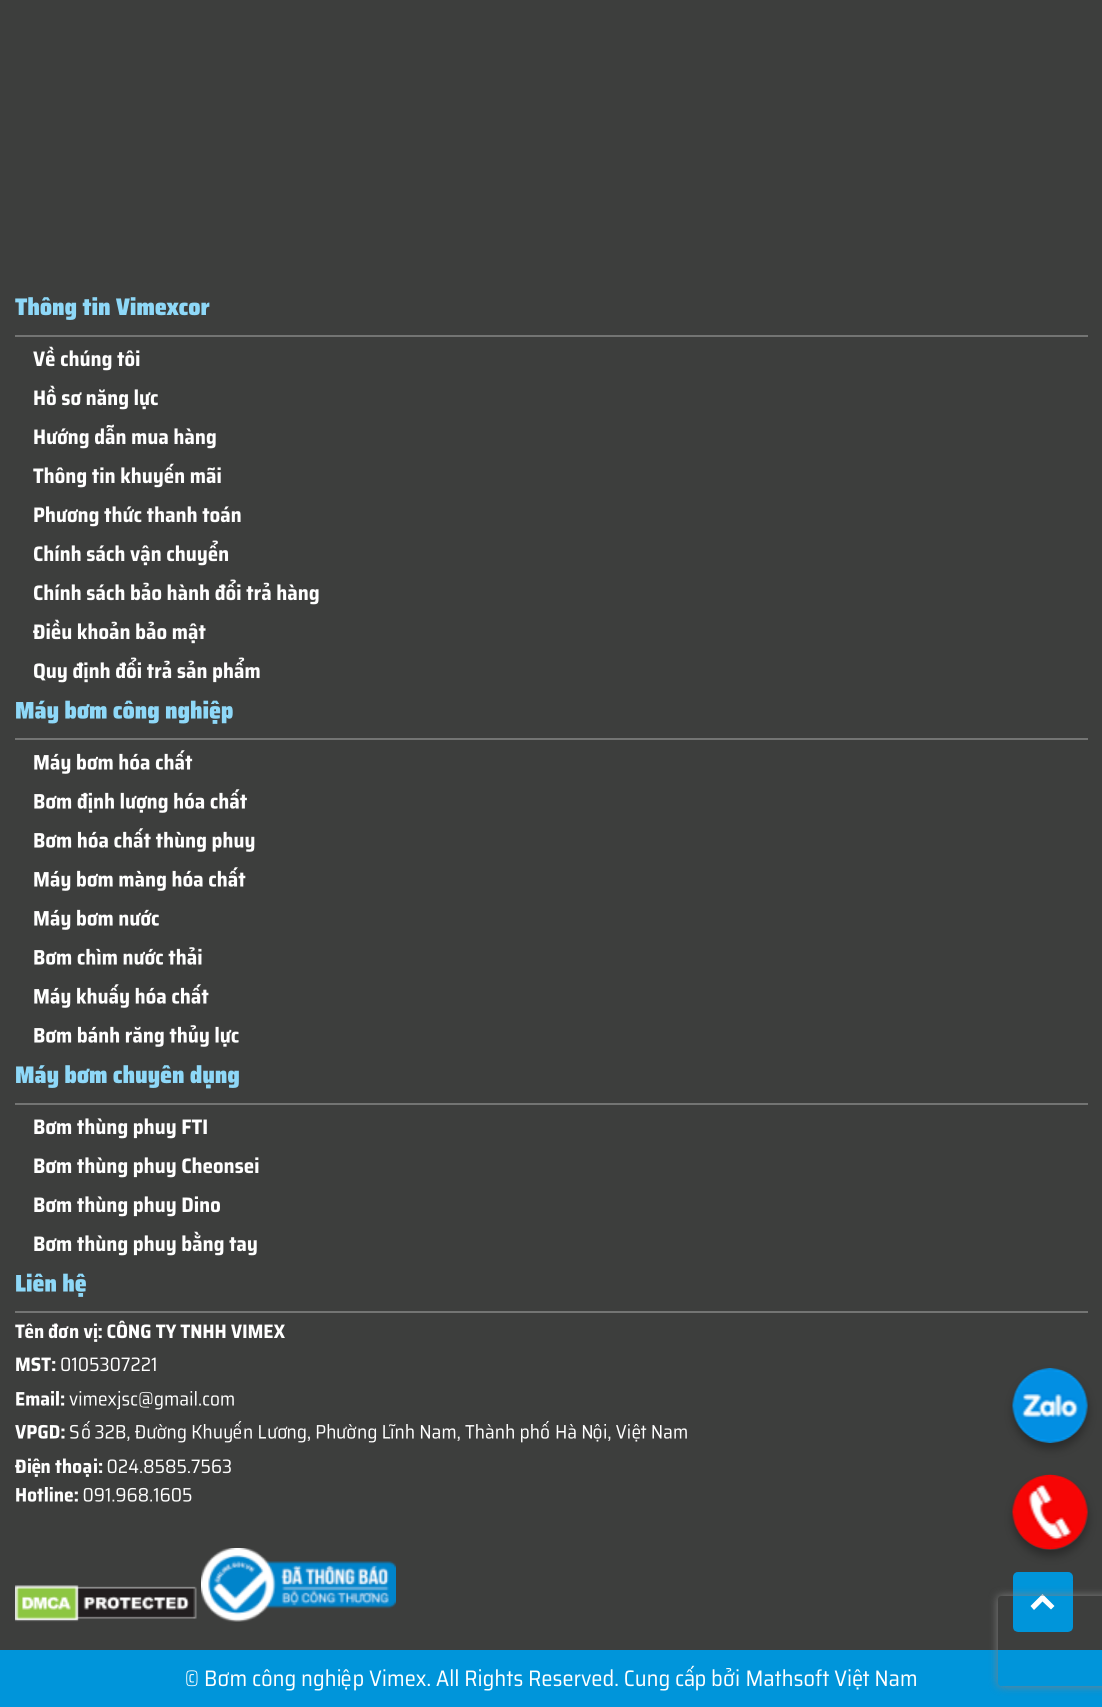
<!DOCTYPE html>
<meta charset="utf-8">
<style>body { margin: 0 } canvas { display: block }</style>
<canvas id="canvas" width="1102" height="1707"></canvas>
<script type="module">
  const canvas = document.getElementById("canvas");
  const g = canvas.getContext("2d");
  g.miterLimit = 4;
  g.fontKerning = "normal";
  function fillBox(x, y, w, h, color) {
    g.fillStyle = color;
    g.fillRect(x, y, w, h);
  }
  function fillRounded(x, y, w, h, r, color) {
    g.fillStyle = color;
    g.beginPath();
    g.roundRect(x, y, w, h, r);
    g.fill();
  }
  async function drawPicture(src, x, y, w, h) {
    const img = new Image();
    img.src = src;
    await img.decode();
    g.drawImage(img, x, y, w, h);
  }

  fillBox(0, 0, 1102, 1707, "#0095DA");
  fillBox(0, 0, 1102, 1650, "#3D3E3D");
  fillBox(15, 335, 1073, 2, "#737473");
  await drawPicture("pic1.png", 15, 297, 195, 23);
  await drawPicture("pic2.png", 33, 346, 107, 25);
  await drawPicture("pic3.png", 34, 385, 124, 25);
  await drawPicture("pic4.png", 34, 424, 182, 25);
  await drawPicture("pic5.png", 33, 463, 188, 25);
  await drawPicture("pic6.png", 34, 506, 207, 21);
  await drawPicture("pic7.png", 34, 540, 195, 26);
  await drawPicture("pic8.png", 34, 579, 285, 26);
  await drawPicture("pic9.png", 33, 619, 173, 25);
  await drawPicture("pic10.png", 34, 657, 226, 26);
  fillBox(15, 738, 1073, 2, "#737473");
  await drawPicture("pic11.png", 16, 700, 217, 24);
  await drawPicture("pic12.png", 34, 750, 159, 24);
  await drawPicture("pic13.png", 34, 789, 213, 24);
  await drawPicture("pic14.png", 34, 828, 221, 24);
  await drawPicture("pic15.png", 34, 867, 212, 24);
  await drawPicture("pic16.png", 34, 909, 125, 21);
  await drawPicture("pic17.png", 34, 947, 168, 18);
  await drawPicture("pic18.png", 34, 984, 175, 24);
  await drawPicture("pic19.png", 34, 1025, 205, 22);
  fillBox(15, 1103, 1073, 2, "#737473");
  await drawPicture("pic20.png", 16, 1065, 223, 24);
  await drawPicture("pic21.png", 34, 1118, 173, 21);
  await drawPicture("pic22.png", 34, 1157, 225, 21);
  await drawPicture("pic23.png", 34, 1196, 186, 21);
  await drawPicture("pic24.png", 34, 1231, 223, 25);
  fillBox(15, 1311, 1073, 2, "#737473");
  await drawPicture("pic25.png", 16, 1273, 70, 24);
  await drawPicture("pic26.png", 15, 1323, 29, 16);
  await drawPicture("pic27.png", 48, 1323, 21, 16);
  await drawPicture("pic28.png", 70, 1327, 23, 11);
  await drawPicture("pic29.png", 94, 1323, 4, 19);
  await drawPicture("pic30.png", 98, 1328, 4, 10);
  await drawPicture("pic31.png", 107, 1320, 178, 19);
  await drawPicture("pic32.png", 16, 1357, 40, 15);
  await drawPicture("pic33.png", 61, 1357, 95, 15);
  await drawPicture("pic34.png", 16, 1391, 49, 15);
  await drawPicture("pic35.png", 69, 1391, 165, 19);
  await drawPicture("pic36.png", 15, 1424, 50, 15);
  await drawPicture("pic37.png", 70, 1424, 9, 15);
  await drawPicture("pic38.png", 82, 1421, 8, 18);
  await drawPicture("pic39.png", 95, 1424, 35, 17);
  await drawPicture("pic40.png", 135, 1424, 32, 15);
  await drawPicture("pic41.png", 167, 1424, 65, 19);
  await drawPicture("pic42.png", 233, 1421, 9, 18);
  await drawPicture("pic43.png", 244, 1425, 22, 14);
  await drawPicture("pic44.png", 268, 1426, 20, 13);
  await drawPicture("pic45.png", 287, 1424, 49, 19);
  await drawPicture("pic46.png", 337, 1424, 20, 15);
  await drawPicture("pic47.png", 358, 1425, 33, 18);
  await drawPicture("pic48.png", 389, 1424, 7, 15);
  await drawPicture("pic49.png", 395, 1424, 144, 19);
  await drawPicture("pic38.png", 541, 1421, 8, 18);
  await drawPicture("pic50.png", 556, 1424, 36, 15);
  await drawPicture("pic51.png", 593, 1424, 9, 18);
  await drawPicture("pic52.png", 604, 1424, 26, 17);
  await drawPicture("pic53.png", 632, 1424, 9, 18);
  await drawPicture("pic54.png", 640, 1425, 47, 14);
  await drawPicture("pic55.png", 15, 1459, 11, 14);
  await drawPicture("pic56.png", 28, 1458, 3, 15);
  await drawPicture("pic57.png", 32, 1458, 9, 19);
  await drawPicture("pic58.png", 41, 1458, 41, 16);
  await drawPicture("pic59.png", 83, 1462, 9, 15);
  await drawPicture("pic60.png", 94, 1458, 9, 15);
  await drawPicture("pic61.png", 107, 1459, 124, 15);
  await drawPicture("pic62.png", 16, 1487, 62, 15);
  await drawPicture("pic63.png", 83, 1487, 109, 15);
  await drawPicture("pic64.png", 15, 1585, 182, 37);
  await drawPicture("pic65.png", 201, 1548, 195, 74);
  await drawPicture("pic66.png", 186, 1670, 30, 17);
  await drawPicture("pic67.png", 218, 1672, 11, 15);
  await drawPicture("pic68.png", 231, 1669, 110, 22);
  await drawPicture("pic69.png", 341, 1669, 10, 21);
  await drawPicture("pic70.png", 354, 1669, 330, 22);
  await drawPicture("pic71.png", 685, 1665, 10, 22);
  await drawPicture("pic72.png", 696, 1669, 26, 22);
  await drawPicture("pic73.png", 724, 1668, 11, 19);
  await drawPicture("pic74.png", 736, 1669, 3, 17);
  await drawPicture("pic75.png", 747, 1669, 104, 18);
  await drawPicture("pic76.png", 853, 1669, 9, 21);
  await drawPicture("pic77.png", 863, 1670, 53, 17);
  g.save();
  g.beginPath();
  g.moveTo(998, 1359);
  g.lineTo(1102, 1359);
  g.lineTo(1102, 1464);
  g.lineTo(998, 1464);
  g.closePath();
  g.moveTo(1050.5, 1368);
  g.bezierCurveTo(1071, 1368, 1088, 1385, 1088, 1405.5);
  g.bezierCurveTo(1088, 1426, 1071, 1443, 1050.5, 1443);
  g.bezierCurveTo(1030, 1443, 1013, 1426, 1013, 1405.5);
  g.bezierCurveTo(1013, 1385, 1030, 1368, 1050.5, 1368);
  g.closePath();
  g.clip("evenodd");
  g.fillStyle = "rgba(0, 0, 0, 0.3)";
  g.filter = "blur(4.5px)";
  g.beginPath();
  g.roundRect(1013, 1374, 75, 75, 37.5);
  g.fill();
  g.filter = "none";
  g.restore();
  await drawPicture("pic78.png", 1012, 1368, 76, 75);
  g.save();
  g.beginPath();
  g.moveTo(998, 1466);
  g.lineTo(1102, 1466);
  g.lineTo(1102, 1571);
  g.lineTo(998, 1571);
  g.closePath();
  g.moveTo(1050.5, 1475);
  g.bezierCurveTo(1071, 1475, 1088, 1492, 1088, 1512.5);
  g.bezierCurveTo(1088, 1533, 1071, 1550, 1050.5, 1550);
  g.bezierCurveTo(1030, 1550, 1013, 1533, 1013, 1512.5);
  g.bezierCurveTo(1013, 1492, 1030, 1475, 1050.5, 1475);
  g.closePath();
  g.clip("evenodd");
  g.fillStyle = "rgba(0, 0, 0, 0.3)";
  g.filter = "blur(4.5px)";
  g.beginPath();
  g.roundRect(1013, 1481, 75, 75, 37.5);
  g.fill();
  g.filter = "none";
  g.restore();
  await drawPicture("pic79.png", 1012, 1474, 76, 76);
  fillRounded(1013, 1572, 60, 60, 5, "#0095DA");
  g.fillStyle = "#FFFFFF";
  g.beginPath();
  g.moveTo(1042.5, 1594);
  g.lineTo(1054.5, 1606);
  g.lineTo(1051, 1609.5);
  g.lineTo(1042.5, 1601.5);
  g.lineTo(1034, 1610);
  g.lineTo(1030.5, 1606);
  g.closePath();
  g.fill();
  fillBox(1072, 1580, 1, 1, "#0091D3");
  g.save();
  g.beginPath();
  g.moveTo(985, 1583);
  g.lineTo(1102, 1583);
  g.lineTo(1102, 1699);
  g.lineTo(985, 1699);
  g.closePath();
  g.moveTo(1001, 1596);
  g.lineTo(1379, 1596);
  g.bezierCurveTo(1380.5, 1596, 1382, 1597.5, 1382, 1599);
  g.lineTo(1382, 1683);
  g.bezierCurveTo(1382, 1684.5, 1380.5, 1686, 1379, 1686);
  g.lineTo(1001, 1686);
  g.bezierCurveTo(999.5, 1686, 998, 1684.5, 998, 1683);
  g.lineTo(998, 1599);
  g.bezierCurveTo(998, 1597.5, 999.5, 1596, 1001, 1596);
  g.closePath();
  g.clip("evenodd");
  g.fillStyle = "#808080";
  g.filter = "blur(4px)";
  g.beginPath();
  g.roundRect(998, 1596, 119, 90, 3);
  g.fill();
  g.filter = "none";
  g.restore();
</script>
